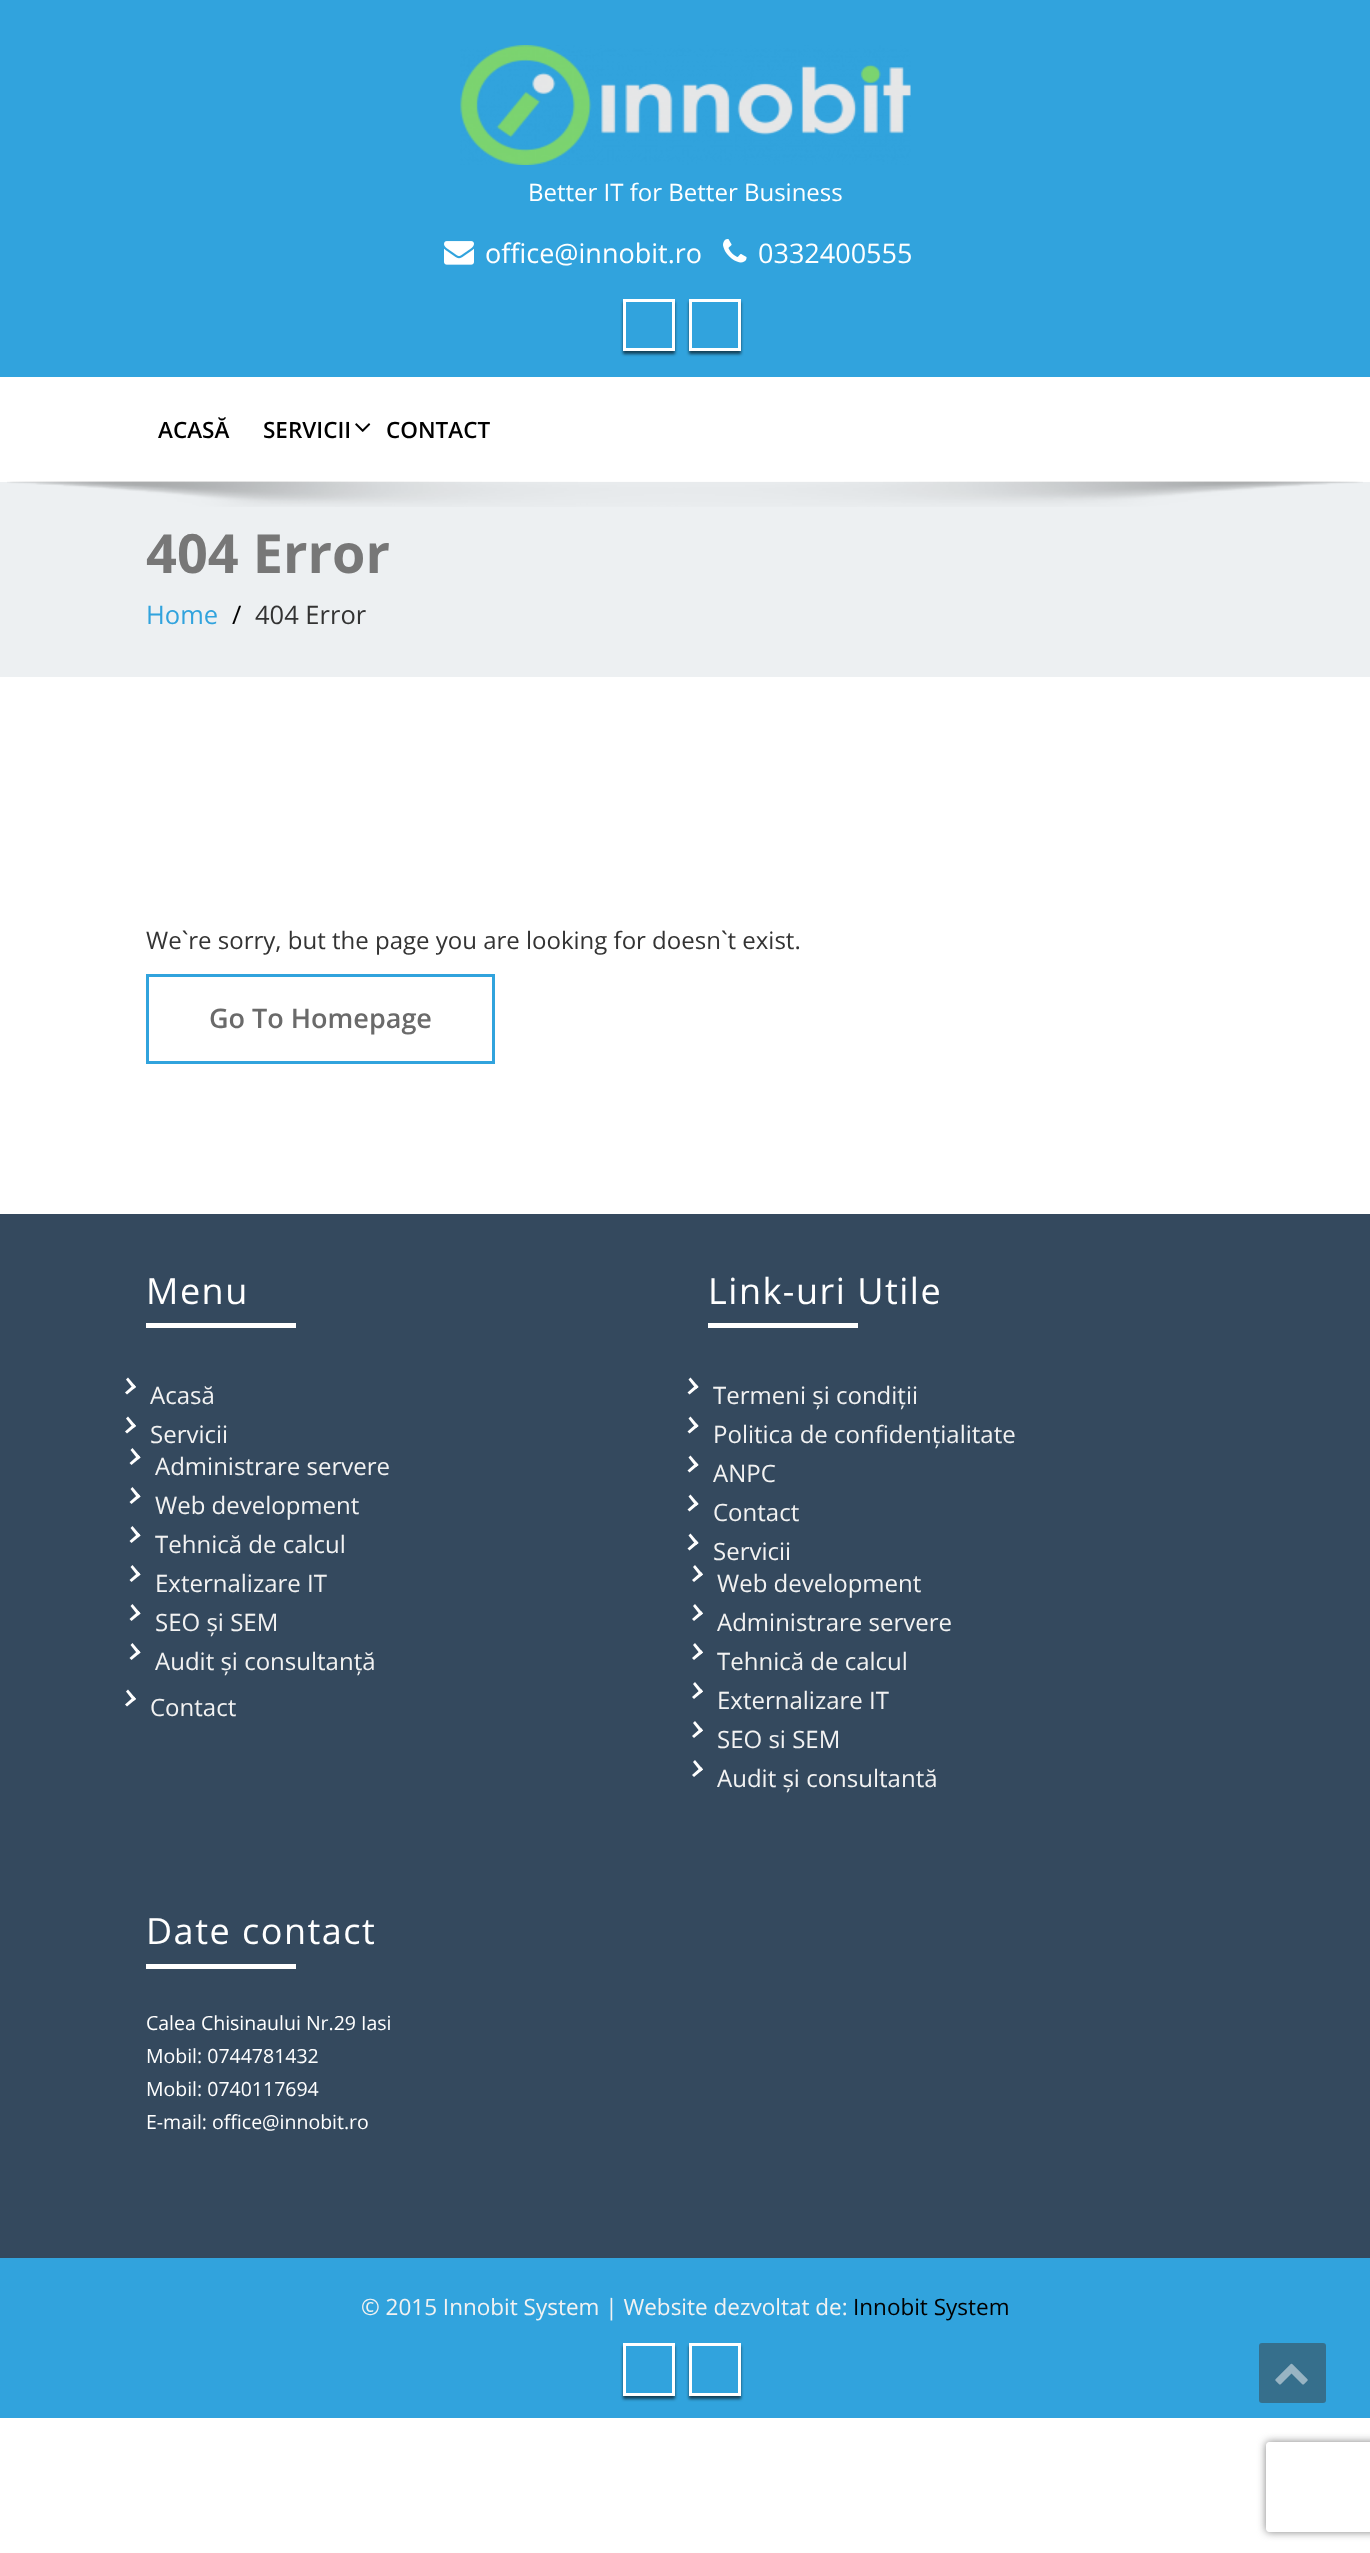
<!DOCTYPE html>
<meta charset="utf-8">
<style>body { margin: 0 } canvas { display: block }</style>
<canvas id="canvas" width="1370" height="2553"></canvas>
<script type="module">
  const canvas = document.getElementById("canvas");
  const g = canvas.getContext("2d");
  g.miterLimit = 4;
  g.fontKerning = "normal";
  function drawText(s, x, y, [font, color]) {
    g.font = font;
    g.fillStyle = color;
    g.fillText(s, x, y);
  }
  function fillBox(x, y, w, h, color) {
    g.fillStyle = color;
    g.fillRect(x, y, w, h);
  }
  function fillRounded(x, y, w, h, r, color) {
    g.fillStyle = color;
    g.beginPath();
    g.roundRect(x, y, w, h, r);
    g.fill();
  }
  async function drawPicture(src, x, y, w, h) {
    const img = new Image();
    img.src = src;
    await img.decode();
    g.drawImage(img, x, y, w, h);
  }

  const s1 = ["24px Open Sans", "#FFFFFF"];
  const s2 = ["27px Open Sans", "#FFFFFF"];
  const s3 = ["600 22.5px Open Sans", "#000000"];
  const s4 = ["bold 54px Open Sans", "#777777"];
  const s5 = ["25.5px Open Sans", "#31A3DD"];
  const s6 = ["25.5px Open Sans", "#000000"];
  const s7 = ["25.5px Open Sans", "#333333"];
  const s8 = ["24px Open Sans", "#333333"];
  const s9 = ["600 27px Open Sans", "#6A6A6A"];
  const s10 = ["36px Open Sans", "#FFFFFF"];
  const s11 = ["24px Open Sans", "#F2F2F2"];
  const s12 = ["19.5px Open Sans", "#FFFFFF"];
  const s13 = ["22.5px Open Sans", "#F2F2F2"];
  const s14 = ["22.5px Open Sans", "#000000"];

  fillBox(0, 0, 1370, 2553, "#FFFFFF");
  fillBox(0, 0, 1370, 377, "#31A3DD");
  await drawPicture("pic1.png", 460, 45, 451, 120);
  drawText("Better IT for Better Business", 528, 201, s1);
  await drawPicture("pic2.png", 444, 241, 30, 24);
  drawText("office@innobit.ro", 485, 263, s2);
  await drawPicture("pic3.png", 723, 239, 24, 24);
  drawText("0332400555", 758, 263, s2);
  g.save();
  g.beginPath();
  g.moveTo(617, 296);
  g.lineTo(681, 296);
  g.lineTo(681, 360);
  g.lineTo(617, 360);
  g.closePath();
  g.moveTo(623, 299);
  g.lineTo(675, 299);
  g.lineTo(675, 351);
  g.lineTo(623, 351);
  g.closePath();
  g.clip("evenodd");
  g.fillStyle = "rgba(0, 0, 0, 0.6)";
  g.filter = "blur(1.5px)";
  g.beginPath();
  g.rect(623, 302, 52, 52);
  g.fill();
  g.filter = "none";
  g.restore();
  g.strokeStyle = "#FFFFFF";
  g.lineWidth = 3;
  g.strokeRect(624.5, 300.5, 49, 49);
  g.save();
  g.beginPath();
  g.moveTo(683, 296);
  g.lineTo(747, 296);
  g.lineTo(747, 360);
  g.lineTo(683, 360);
  g.closePath();
  g.moveTo(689, 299);
  g.lineTo(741, 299);
  g.lineTo(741, 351);
  g.lineTo(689, 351);
  g.closePath();
  g.clip("evenodd");
  g.fillStyle = "rgba(0, 0, 0, 0.6)";
  g.filter = "blur(1.5px)";
  g.beginPath();
  g.rect(689, 302, 52, 52);
  g.fill();
  g.filter = "none";
  g.restore();
  g.strokeRect(690.5, 300.5, 49, 49);
  drawText("ACASĂ", 158, 438, s3);
  drawText("SERVICII", 263, 438, s3);
  await drawPicture("pic4.png", 355, 423, 16, 9);
  drawText("CONTACT", 386, 438, s3);
  fillBox(0, 482, 1370, 195, "#EDF0F2");
  await drawPicture("pic5.png", 7, 481, 1356, 26);
  drawText("404 Error", 146, 573, s4);
  drawText("Home", 146, 624, s5);
  drawText("/", 232, 624, s6);
  drawText("404 Error", 255, 624, s7);
  drawText("We`re sorry, but the page you are looking for doesn`t exist.", 146, 949, s8);
  g.strokeStyle = "#31A3DD";
  g.strokeRect(147.5, 975.5, 346, 87);
  drawText("Go To Homepage", 209, 1028, s9);
  fillBox(0, 1214, 1370, 1044, "#34495E");
  g.letterSpacing = "1.5px";
  drawText("Menu", 146, 1304, s10);
  fillBox(146, 1323, 150, 5, "#FFFFFF");
  g.beginPath();
  g.moveTo(128, 1377.5);
  g.lineTo(136, 1387);
  g.lineTo(133.5, 1389);
  g.lineTo(126, 1379.5);
  g.closePath();
  g.fill();
  g.beginPath();
  g.moveTo(134, 1384.5);
  g.lineTo(136, 1387);
  g.lineTo(127, 1394.5);
  g.lineTo(125, 1392.5);
  g.closePath();
  g.fill();
  g.letterSpacing = "0px";
  drawText("Acasă", 150, 1404, s11);
  g.fillStyle = "#FFFFFF";
  g.beginPath();
  g.moveTo(128, 1416.5);
  g.lineTo(136, 1426);
  g.lineTo(133.5, 1428);
  g.lineTo(126, 1418.5);
  g.closePath();
  g.fill();
  g.beginPath();
  g.moveTo(134, 1423.5);
  g.lineTo(136, 1426);
  g.lineTo(127, 1433.5);
  g.lineTo(125, 1431.5);
  g.closePath();
  g.fill();
  drawText("Servicii", 150, 1443, s11);
  g.fillStyle = "#FFFFFF";
  g.beginPath();
  g.moveTo(132.5, 1448);
  g.lineTo(140.5, 1457.5);
  g.lineTo(138, 1459.5);
  g.lineTo(130.5, 1450);
  g.closePath();
  g.fill();
  g.beginPath();
  g.moveTo(138.5, 1455);
  g.lineTo(140.5, 1457.5);
  g.lineTo(131.5, 1465);
  g.lineTo(129.5, 1463);
  g.closePath();
  g.fill();
  drawText("Administrare servere", 155, 1475, s11);
  g.fillStyle = "#FFFFFF";
  g.beginPath();
  g.moveTo(132.5, 1487);
  g.lineTo(140.5, 1496.5);
  g.lineTo(138, 1498.5);
  g.lineTo(130.5, 1489);
  g.closePath();
  g.fill();
  g.beginPath();
  g.moveTo(138.5, 1494);
  g.lineTo(140.5, 1496.5);
  g.lineTo(131.5, 1504);
  g.lineTo(129.5, 1502);
  g.closePath();
  g.fill();
  drawText("Web development", 155, 1514, s11);
  g.fillStyle = "#FFFFFF";
  g.beginPath();
  g.moveTo(132.5, 1526);
  g.lineTo(140.5, 1535.5);
  g.lineTo(138, 1537.5);
  g.lineTo(130.5, 1528);
  g.closePath();
  g.fill();
  g.beginPath();
  g.moveTo(138.5, 1533);
  g.lineTo(140.5, 1535.5);
  g.lineTo(131.5, 1543);
  g.lineTo(129.5, 1541);
  g.closePath();
  g.fill();
  drawText("Tehnică de calcul", 155, 1553, s11);
  g.fillStyle = "#FFFFFF";
  g.beginPath();
  g.moveTo(132.5, 1565);
  g.lineTo(140.5, 1574.5);
  g.lineTo(138, 1576.5);
  g.lineTo(130.5, 1567);
  g.closePath();
  g.fill();
  g.beginPath();
  g.moveTo(138.5, 1572);
  g.lineTo(140.5, 1574.5);
  g.lineTo(131.5, 1582);
  g.lineTo(129.5, 1580);
  g.closePath();
  g.fill();
  drawText("Externalizare IT", 155, 1592, s11);
  g.fillStyle = "#FFFFFF";
  g.beginPath();
  g.moveTo(132.5, 1604);
  g.lineTo(140.5, 1613.5);
  g.lineTo(138, 1615.5);
  g.lineTo(130.5, 1606);
  g.closePath();
  g.fill();
  g.beginPath();
  g.moveTo(138.5, 1611);
  g.lineTo(140.5, 1613.5);
  g.lineTo(131.5, 1621);
  g.lineTo(129.5, 1619);
  g.closePath();
  g.fill();
  drawText("SEO și SEM", 155, 1631, s11);
  g.fillStyle = "#FFFFFF";
  g.beginPath();
  g.moveTo(132.5, 1643);
  g.lineTo(140.5, 1652.5);
  g.lineTo(138, 1654.5);
  g.lineTo(130.5, 1645);
  g.closePath();
  g.fill();
  g.beginPath();
  g.moveTo(138.5, 1650);
  g.lineTo(140.5, 1652.5);
  g.lineTo(131.5, 1660);
  g.lineTo(129.5, 1658);
  g.closePath();
  g.fill();
  drawText("Audit și consultanță", 155, 1670, s11);
  g.fillStyle = "#FFFFFF";
  g.beginPath();
  g.moveTo(128, 1689.5);
  g.lineTo(136, 1699);
  g.lineTo(133.5, 1701);
  g.lineTo(126, 1691.5);
  g.closePath();
  g.fill();
  g.beginPath();
  g.moveTo(134, 1696.5);
  g.lineTo(136, 1699);
  g.lineTo(127, 1706.5);
  g.lineTo(125, 1704.5);
  g.closePath();
  g.fill();
  drawText("Contact", 150, 1716, s11);
  g.letterSpacing = "1.5px";
  drawText("Link-uri Utile", 708, 1304, s10);
  fillBox(708, 1323, 150, 5, "#FFFFFF");
  g.beginPath();
  g.moveTo(690.5, 1377.5);
  g.lineTo(698.5, 1387);
  g.lineTo(696, 1389);
  g.lineTo(688.5, 1379.5);
  g.closePath();
  g.fill();
  g.beginPath();
  g.moveTo(696.5, 1384.5);
  g.lineTo(698.5, 1387);
  g.lineTo(689.5, 1394.5);
  g.lineTo(687.5, 1392.5);
  g.closePath();
  g.fill();
  g.letterSpacing = "0px";
  drawText("Termeni și condiții", 713, 1404, s11);
  g.fillStyle = "#FFFFFF";
  g.beginPath();
  g.moveTo(690.5, 1416.5);
  g.lineTo(698.5, 1426);
  g.lineTo(696, 1428);
  g.lineTo(688.5, 1418.5);
  g.closePath();
  g.fill();
  g.beginPath();
  g.moveTo(696.5, 1423.5);
  g.lineTo(698.5, 1426);
  g.lineTo(689.5, 1433.5);
  g.lineTo(687.5, 1431.5);
  g.closePath();
  g.fill();
  drawText("Politica de confidențialitate", 713, 1443, s11);
  g.fillStyle = "#FFFFFF";
  g.beginPath();
  g.moveTo(690.5, 1455.5);
  g.lineTo(698.5, 1465);
  g.lineTo(696, 1467);
  g.lineTo(688.5, 1457.5);
  g.closePath();
  g.fill();
  g.beginPath();
  g.moveTo(696.5, 1462.5);
  g.lineTo(698.5, 1465);
  g.lineTo(689.5, 1472.5);
  g.lineTo(687.5, 1470.5);
  g.closePath();
  g.fill();
  drawText("ANPC", 713, 1482, s11);
  g.fillStyle = "#FFFFFF";
  g.beginPath();
  g.moveTo(690.5, 1494.5);
  g.lineTo(698.5, 1504);
  g.lineTo(696, 1506);
  g.lineTo(688.5, 1496.5);
  g.closePath();
  g.fill();
  g.beginPath();
  g.moveTo(696.5, 1501.5);
  g.lineTo(698.5, 1504);
  g.lineTo(689.5, 1511.5);
  g.lineTo(687.5, 1509.5);
  g.closePath();
  g.fill();
  drawText("Contact", 713, 1521, s11);
  g.fillStyle = "#FFFFFF";
  g.beginPath();
  g.moveTo(690.5, 1533.5);
  g.lineTo(698.5, 1543);
  g.lineTo(696, 1545);
  g.lineTo(688.5, 1535.5);
  g.closePath();
  g.fill();
  g.beginPath();
  g.moveTo(696.5, 1540.5);
  g.lineTo(698.5, 1543);
  g.lineTo(689.5, 1550.5);
  g.lineTo(687.5, 1548.5);
  g.closePath();
  g.fill();
  drawText("Servicii", 713, 1560, s11);
  g.fillStyle = "#FFFFFF";
  g.beginPath();
  g.moveTo(695, 1565);
  g.lineTo(703, 1574.5);
  g.lineTo(700.5, 1576.5);
  g.lineTo(693, 1567);
  g.closePath();
  g.fill();
  g.beginPath();
  g.moveTo(701, 1572);
  g.lineTo(703, 1574.5);
  g.lineTo(694, 1582);
  g.lineTo(692, 1580);
  g.closePath();
  g.fill();
  drawText("Web development", 717, 1592, s11);
  g.fillStyle = "#FFFFFF";
  g.beginPath();
  g.moveTo(695, 1604);
  g.lineTo(703, 1613.5);
  g.lineTo(700.5, 1615.5);
  g.lineTo(693, 1606);
  g.closePath();
  g.fill();
  g.beginPath();
  g.moveTo(701, 1611);
  g.lineTo(703, 1613.5);
  g.lineTo(694, 1621);
  g.lineTo(692, 1619);
  g.closePath();
  g.fill();
  drawText("Administrare servere", 717, 1631, s11);
  g.fillStyle = "#FFFFFF";
  g.beginPath();
  g.moveTo(695, 1643);
  g.lineTo(703, 1652.5);
  g.lineTo(700.5, 1654.5);
  g.lineTo(693, 1645);
  g.closePath();
  g.fill();
  g.beginPath();
  g.moveTo(701, 1650);
  g.lineTo(703, 1652.5);
  g.lineTo(694, 1660);
  g.lineTo(692, 1658);
  g.closePath();
  g.fill();
  drawText("Tehnică de calcul", 717, 1670, s11);
  g.fillStyle = "#FFFFFF";
  g.beginPath();
  g.moveTo(695, 1682);
  g.lineTo(703, 1691.5);
  g.lineTo(700.5, 1693.5);
  g.lineTo(693, 1684);
  g.closePath();
  g.fill();
  g.beginPath();
  g.moveTo(701, 1689);
  g.lineTo(703, 1691.5);
  g.lineTo(694, 1699);
  g.lineTo(692, 1697);
  g.closePath();
  g.fill();
  drawText("Externalizare IT", 717, 1709, s11);
  g.fillStyle = "#FFFFFF";
  g.beginPath();
  g.moveTo(695, 1721);
  g.lineTo(703, 1730.5);
  g.lineTo(700.5, 1732.5);
  g.lineTo(693, 1723);
  g.closePath();
  g.fill();
  g.beginPath();
  g.moveTo(701, 1728);
  g.lineTo(703, 1730.5);
  g.lineTo(694, 1738);
  g.lineTo(692, 1736);
  g.closePath();
  g.fill();
  drawText("SEO si SEM", 717, 1748, s11);
  g.fillStyle = "#FFFFFF";
  g.beginPath();
  g.moveTo(695, 1760);
  g.lineTo(703, 1769.5);
  g.lineTo(700.5, 1771.5);
  g.lineTo(693, 1762);
  g.closePath();
  g.fill();
  g.beginPath();
  g.moveTo(701, 1767);
  g.lineTo(703, 1769.5);
  g.lineTo(694, 1777);
  g.lineTo(692, 1775);
  g.closePath();
  g.fill();
  drawText("Audit și consultantă", 717, 1787, s11);
  g.letterSpacing = "1.5px";
  drawText("Date contact", 146, 1944, s10);
  fillBox(146, 1964, 150, 5, "#FFFFFF");
  g.letterSpacing = "0px";
  drawText("Calea Chisinaului Nr.29 Iasi", 146, 2030, s12);
  drawText("Mobil: 0744781432", 146, 2063, s12);
  drawText("Mobil: 0740117694", 146, 2096, s12);
  drawText("E-mail: office@innobit.ro", 146, 2129, s12);
  fillBox(0, 2258, 1370, 160, "#31A3DD");
  drawText("© 2015 Innobit System | Website dezvoltat de:", 361, 2315, s13);
  drawText("Innobit System", 853, 2315, s14);
  g.save();
  g.beginPath();
  g.moveTo(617, 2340);
  g.lineTo(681, 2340);
  g.lineTo(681, 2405);
  g.lineTo(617, 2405);
  g.closePath();
  g.moveTo(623, 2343);
  g.lineTo(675, 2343);
  g.lineTo(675, 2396);
  g.lineTo(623, 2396);
  g.closePath();
  g.clip("evenodd");
  g.fillStyle = "rgba(0, 0, 0, 0.6)";
  g.filter = "blur(1.5px)";
  g.beginPath();
  g.rect(623, 2346, 52, 53);
  g.fill();
  g.filter = "none";
  g.restore();
  g.strokeStyle = "#FFFFFF";
  g.strokeRect(624.5, 2344.5, 49, 50);
  g.save();
  g.beginPath();
  g.moveTo(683, 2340);
  g.lineTo(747, 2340);
  g.lineTo(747, 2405);
  g.lineTo(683, 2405);
  g.closePath();
  g.moveTo(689, 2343);
  g.lineTo(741, 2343);
  g.lineTo(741, 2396);
  g.lineTo(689, 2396);
  g.closePath();
  g.clip("evenodd");
  g.fillStyle = "rgba(0, 0, 0, 0.6)";
  g.filter = "blur(1.5px)";
  g.beginPath();
  g.rect(689, 2346, 52, 53);
  g.fill();
  g.filter = "none";
  g.restore();
  g.strokeRect(690.5, 2344.5, 49, 50);
  fillRounded(1259, 2343, 67, 60, 3, "#366F8C");
  await drawPicture("pic6.png", 1275, 2363, 33, 22);
  g.save();
  g.beginPath();
  g.moveTo(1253, 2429);
  g.lineTo(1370, 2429);
  g.lineTo(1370, 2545);
  g.lineTo(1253, 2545);
  g.closePath();
  g.moveTo(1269, 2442);
  g.lineTo(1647, 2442);
  g.bezierCurveTo(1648.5, 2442, 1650, 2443.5, 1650, 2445);
  g.lineTo(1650, 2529);
  g.bezierCurveTo(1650, 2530.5, 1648.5, 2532, 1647, 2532);
  g.lineTo(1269, 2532);
  g.bezierCurveTo(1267.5, 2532, 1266, 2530.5, 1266, 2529);
  g.lineTo(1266, 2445);
  g.bezierCurveTo(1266, 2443.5, 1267.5, 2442, 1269, 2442);
  g.closePath();
  g.clip("evenodd");
  g.fillStyle = "#808080";
  g.filter = "blur(4px)";
  g.beginPath();
  g.roundRect(1266, 2442, 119, 90, 3);
  g.fill();
  g.filter = "none";
  g.restore();
</script>
